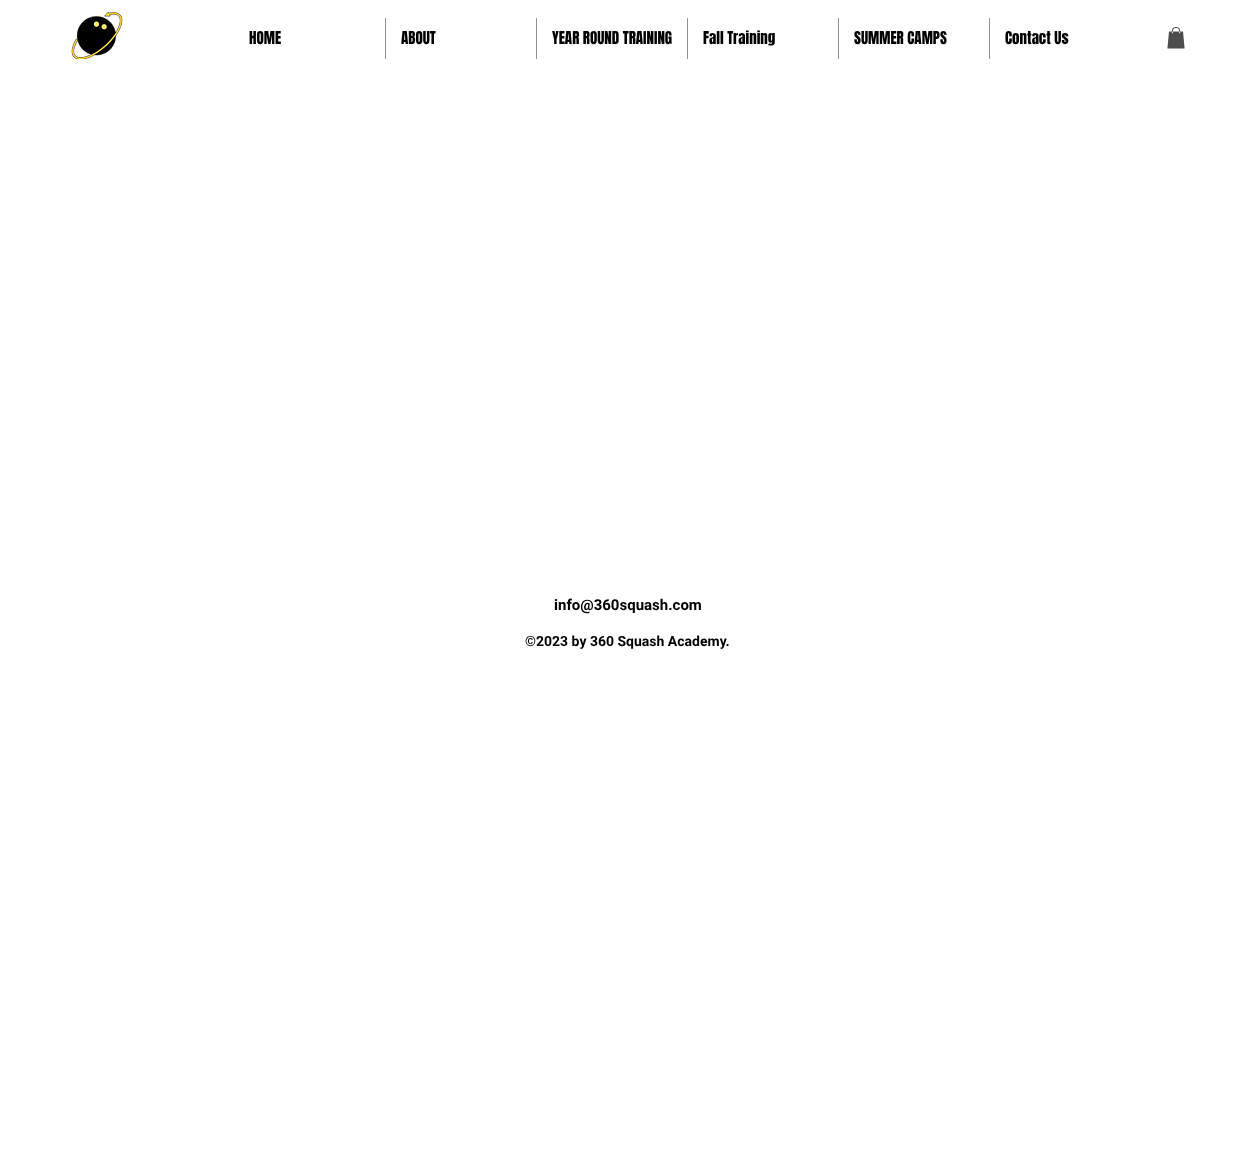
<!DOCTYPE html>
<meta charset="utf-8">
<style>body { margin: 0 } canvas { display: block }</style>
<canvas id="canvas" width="1255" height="1152"></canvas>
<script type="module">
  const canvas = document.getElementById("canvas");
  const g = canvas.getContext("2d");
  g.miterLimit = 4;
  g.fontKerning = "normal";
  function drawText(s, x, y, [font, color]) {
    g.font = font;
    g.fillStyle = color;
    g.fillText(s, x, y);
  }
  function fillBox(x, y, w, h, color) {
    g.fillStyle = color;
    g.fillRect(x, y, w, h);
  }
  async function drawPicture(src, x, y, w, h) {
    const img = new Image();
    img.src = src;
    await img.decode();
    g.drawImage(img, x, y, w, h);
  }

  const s1 = ["15px Anton", "#000000"];
  const s2 = ["bold 15px Roboto", "#000000"];
  const s3 = ["bold 14px Roboto", "#000000"];

  fillBox(0, 0, 1255, 1152, "#FFFFFF");
  await drawPicture("pic1.png", 71, 12, 52, 47);
  drawText("HOME", 249, 44, s1);
  fillBox(385, 18, 1, 41, "#919191");
  drawText("ABOUT", 401, 44, s1);
  fillBox(536, 18, 1, 41, "#919191");
  drawText("YEAR ROUND TRAINING", 552, 44, s1);
  fillBox(687, 18, 1, 41, "#919191");
  drawText("Fall Training", 703, 44, s1);
  fillBox(838, 18, 1, 41, "#919191");
  drawText("SUMMER CAMPS", 854, 44, s1);
  fillBox(989, 18, 1, 41, "#919191");
  drawText("Contact Us", 1005, 44, s1);
  await drawPicture("pic2.png", 1167, 27, 18, 22);
  drawText("info@360squash.com", 554, 610, s2);
  drawText("©2023 by 360 Squash Academy.", 525, 646, s3);
</script>
